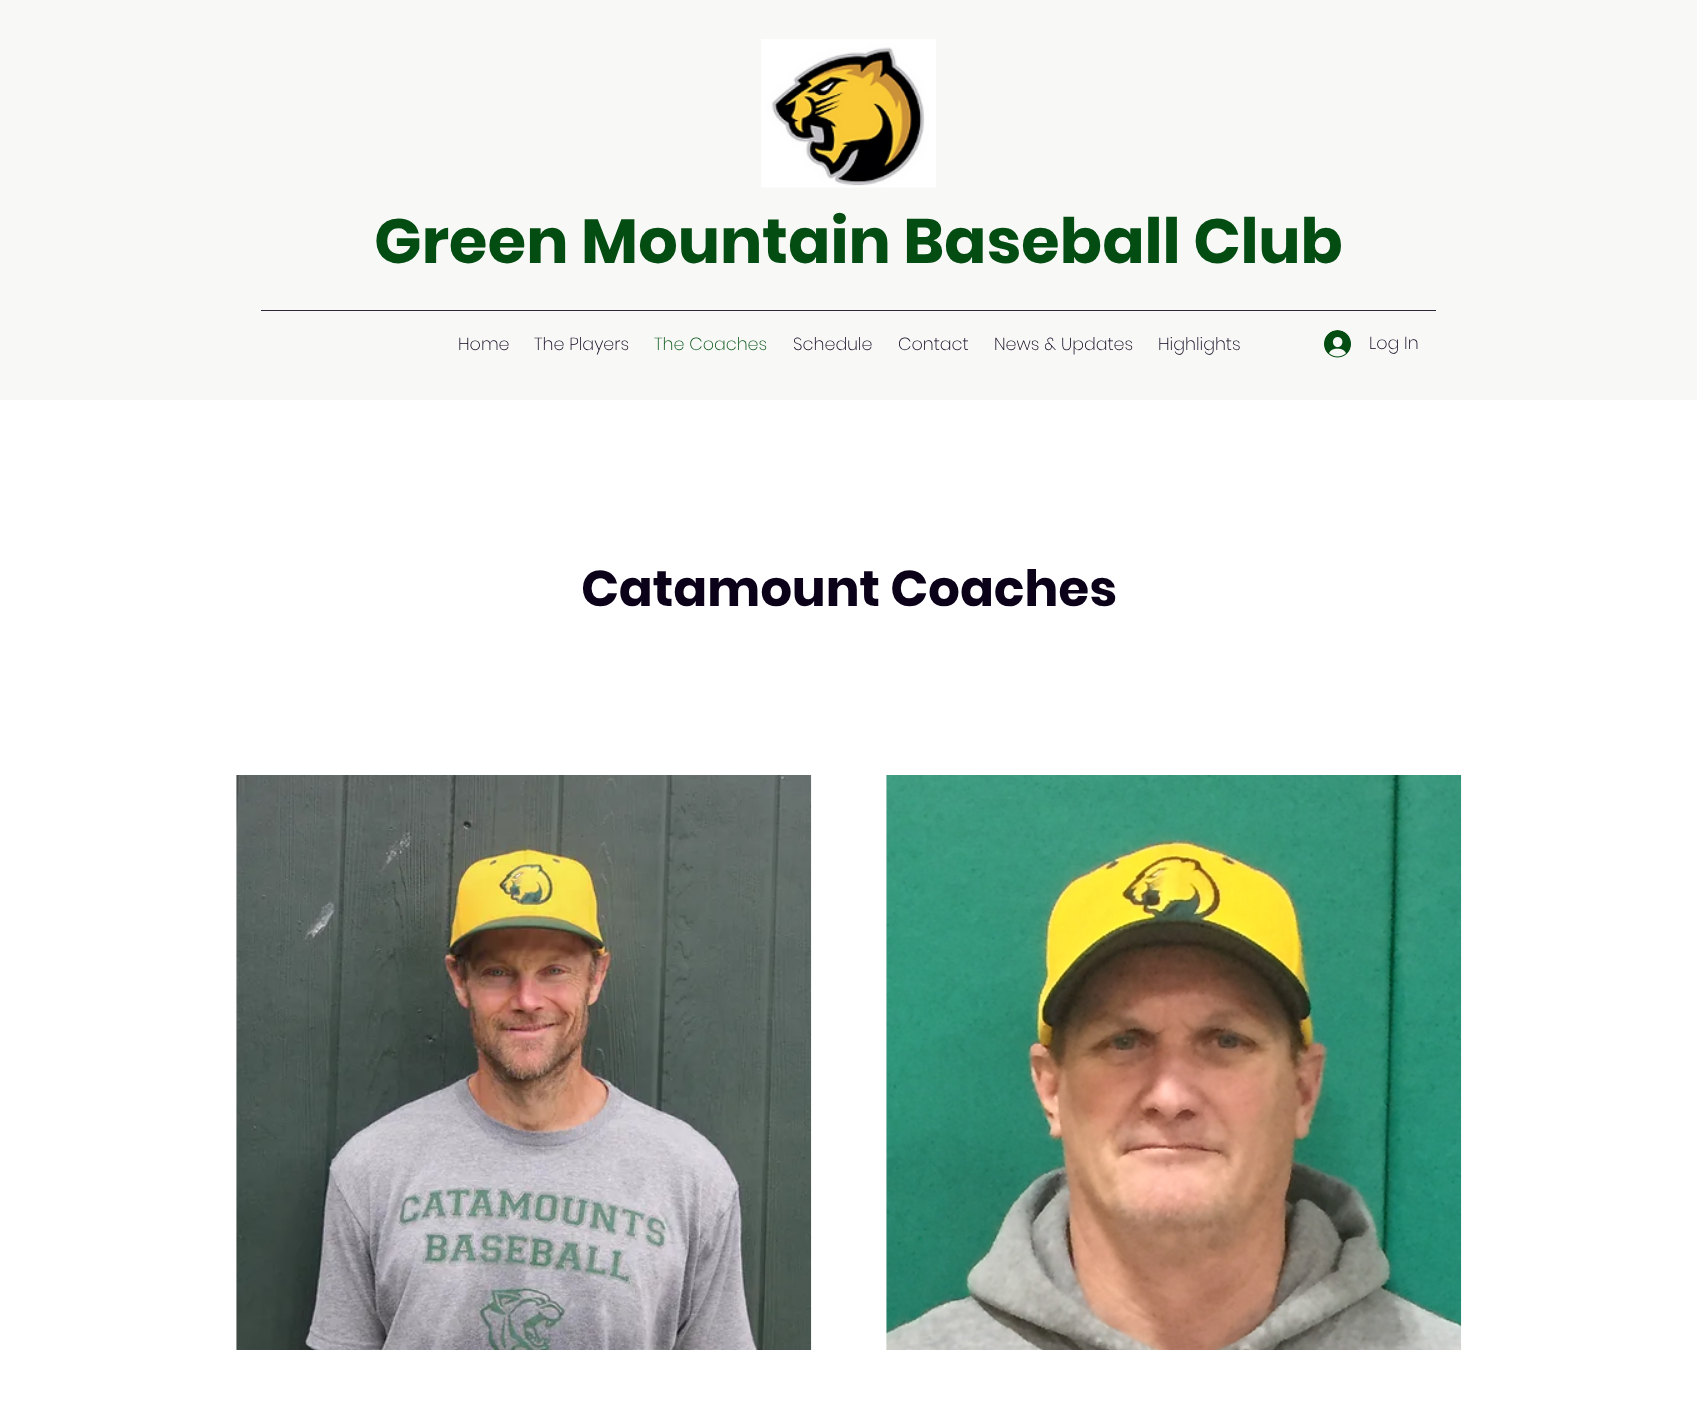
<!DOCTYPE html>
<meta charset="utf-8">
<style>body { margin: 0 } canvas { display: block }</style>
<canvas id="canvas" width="1697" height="1415"></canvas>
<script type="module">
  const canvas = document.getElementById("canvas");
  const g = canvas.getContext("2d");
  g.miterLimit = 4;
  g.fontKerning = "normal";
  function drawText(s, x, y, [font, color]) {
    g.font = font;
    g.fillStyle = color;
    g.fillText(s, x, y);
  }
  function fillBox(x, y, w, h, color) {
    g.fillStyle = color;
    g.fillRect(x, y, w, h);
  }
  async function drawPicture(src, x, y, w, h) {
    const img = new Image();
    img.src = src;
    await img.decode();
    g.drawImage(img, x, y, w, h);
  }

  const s1 = ["bold 62.5px Poppins", "#044D12"];
  const s2 = ["200 17.5px Poppins", "#0B0119"];
  const s3 = ["200 17.5px Poppins", "#045313"];
  const s4 = ["bold 50px Poppins", "#0B0119"];

  fillBox(0, 0, 1697, 1415, "#FFFFFF");
  fillBox(0, 0, 1697, 400, "#F8F8F7");
  await drawPicture("pic1.png", 761, 39, 175, 149);
  drawText("Green Mountain Baseball Club", 374, 263, s1);
  fillBox(261, 310, 1175, 1, "#2F263A");
  drawText("Home", 458, 350, s2);
  drawText("The Players", 534, 350, s2);
  drawText("The Coaches", 654, 350, s3);
  drawText("Schedule", 793, 350, s2);
  drawText("Contact", 898, 350, s2);
  drawText("News & Updates", 994, 350, s2);
  drawText("Highlights", 1158, 350, s2);
  await drawPicture("pic2.png", 1324, 330, 27, 28);
  drawText("Log In", 1369, 349, s2);
  drawText("Catamount Coaches", 581, 606, s4);
  await drawPicture("pic3.png", 236, 775, 576, 575);
  await drawPicture("pic4.png", 886, 775, 576, 575);
</script>
